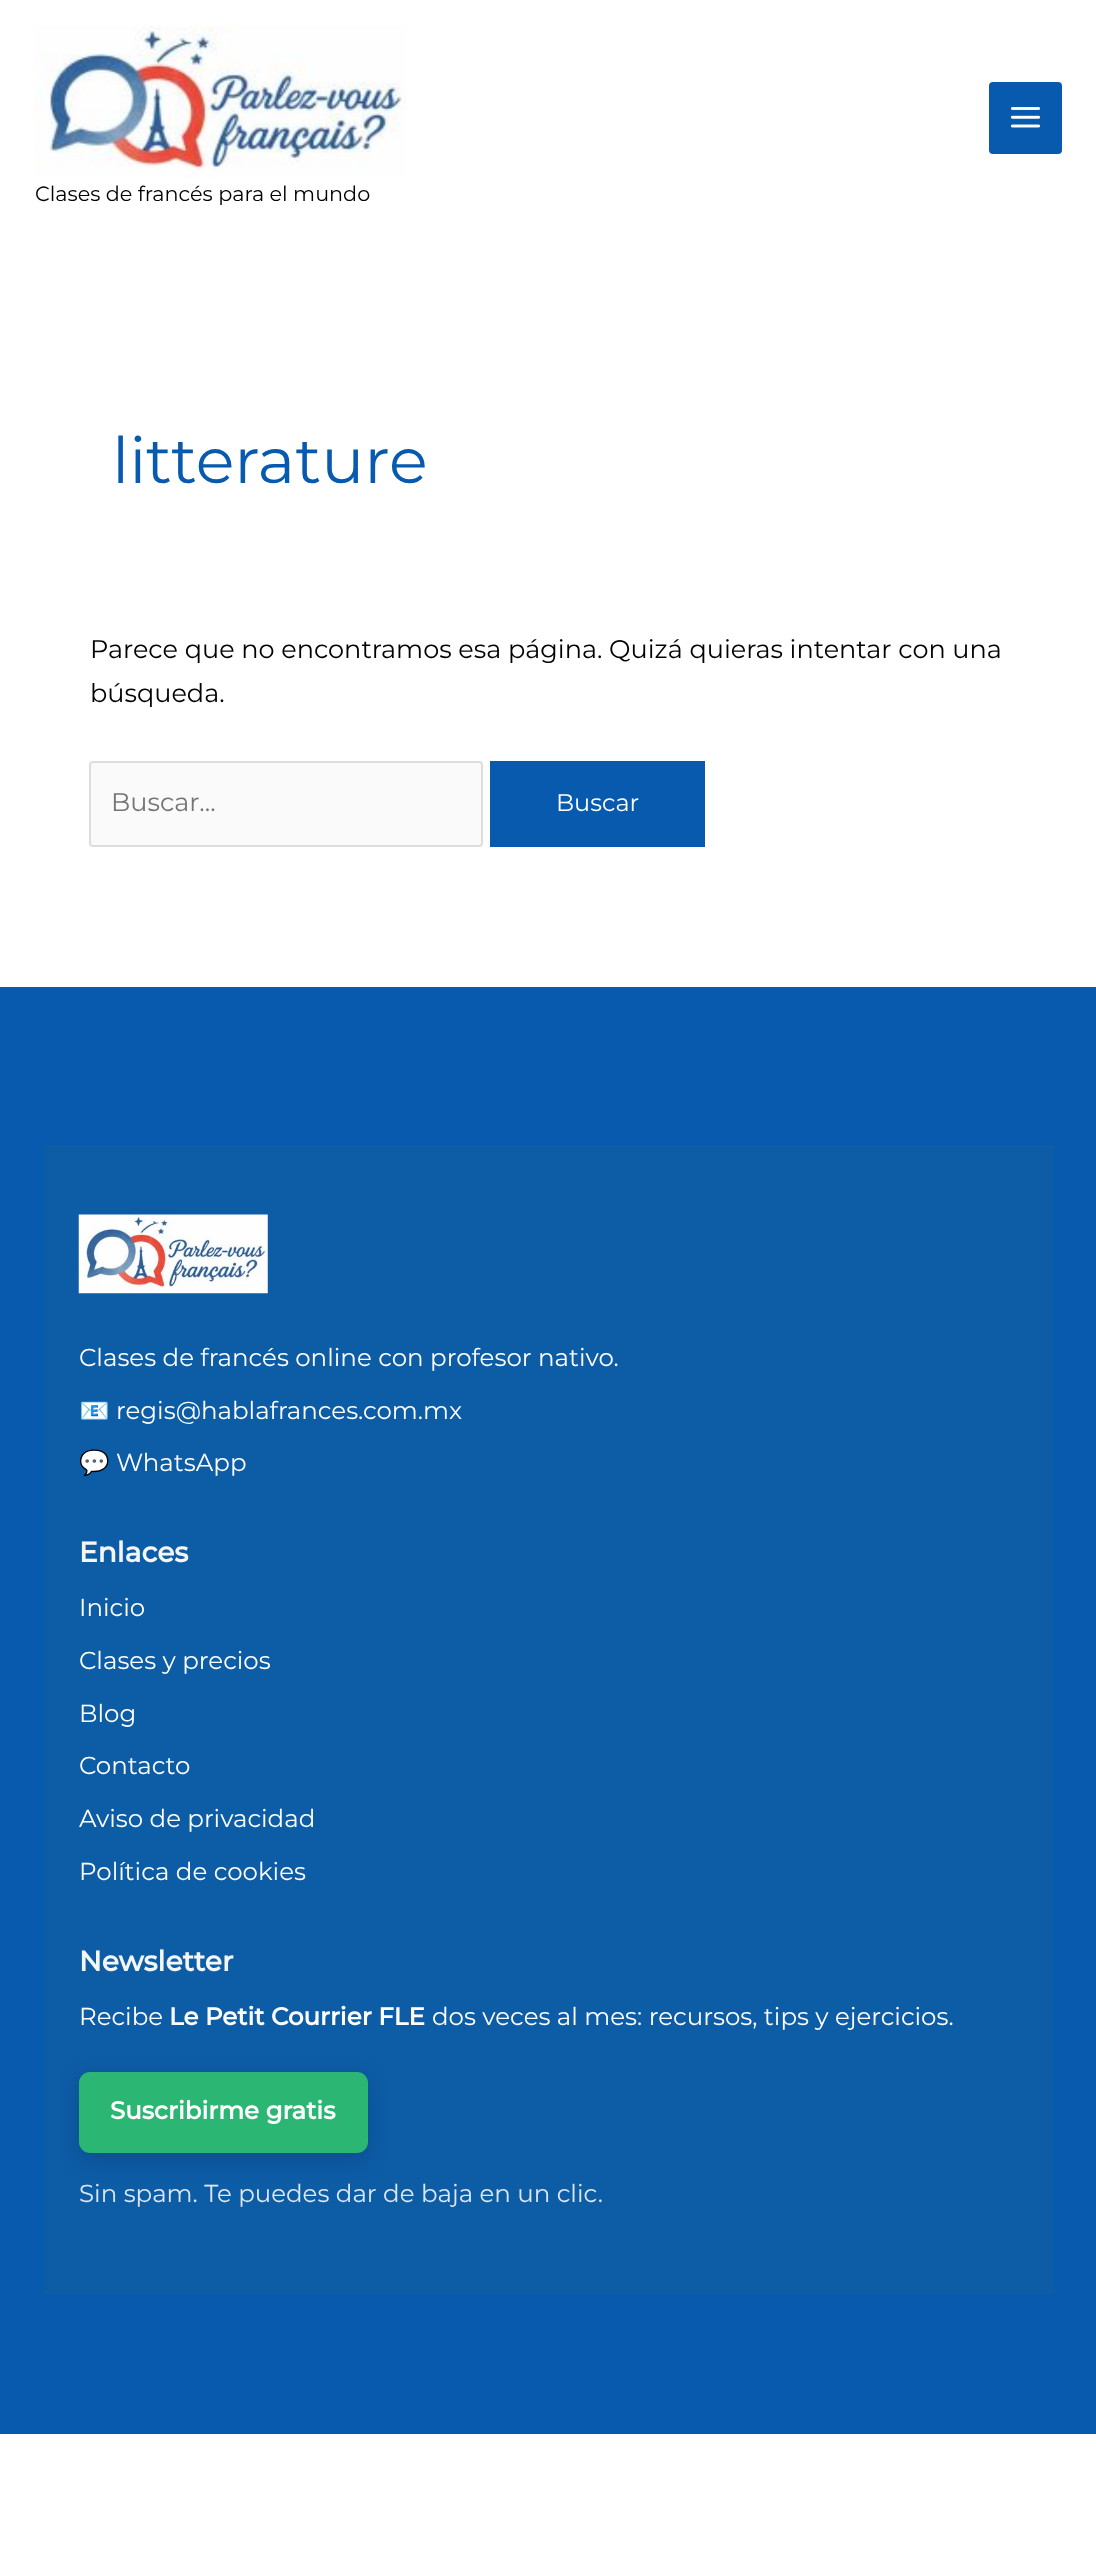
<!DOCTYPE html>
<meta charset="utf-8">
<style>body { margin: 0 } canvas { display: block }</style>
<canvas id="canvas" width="1096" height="2569"></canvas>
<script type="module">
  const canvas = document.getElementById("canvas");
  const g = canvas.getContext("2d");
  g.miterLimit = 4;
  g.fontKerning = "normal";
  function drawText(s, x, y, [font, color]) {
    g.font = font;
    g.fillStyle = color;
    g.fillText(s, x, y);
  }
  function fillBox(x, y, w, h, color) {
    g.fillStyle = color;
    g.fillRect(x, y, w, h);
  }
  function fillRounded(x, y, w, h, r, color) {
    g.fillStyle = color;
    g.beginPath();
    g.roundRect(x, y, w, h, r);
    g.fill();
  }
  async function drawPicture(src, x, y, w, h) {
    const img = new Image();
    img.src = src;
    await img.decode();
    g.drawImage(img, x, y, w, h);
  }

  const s1 = ["20.75px Montserrat", "#000000"];
  const s2 = ["64px Montserrat", "#075AAE"];
  const s3 = ["25.55px Montserrat", "#000000"];
  const s4 = ["25.55px Montserrat", "#757575"];
  const s5 = ["24px Montserrat", "#FFFFFF"];
  const s6 = ["24.5px Montserrat", "#FFFFFF"];
  const s7 = ["24.5px Noto Color Emoji", "#FFFFFF"];
  const s8 = ["bold 28px Montserrat", "#F4F6F6"];
  const s9 = ["bold 24.5px Montserrat", "#FFFFFF"];
  const s10 = ["24.5px Montserrat", "#DBE7F2"];

  fillBox(0, 0, 1096, 2569, "#FFFFFF");
  fillRounded(989, 82, 73, 72, 4, "#075AAE");
  await drawPicture("pic1.png", 1010, 107, 31, 21);
  await drawPicture("pic2.png", 35, 26, 371, 152);
  drawText("Clases de francés para el mundo", 35, 201, s1);
  drawText("litterature", 112, 483, s2);
  drawText("Parece que no encontramos esa página. Quizá quieras intentar con una", 90, 658, s3);
  drawText("búsqueda.", 90, 702, s3);
  g.fillStyle = "#FAFAFA";
  g.beginPath();
  g.roundRect(90, 762, 392, 84, 3);
  g.fill();
  g.strokeStyle = "#DDDDDD";
  g.lineWidth = 2;
  g.stroke();
  drawText("Buscar...", 111, 811, s4);
  fillBox(490, 761, 215, 86, "#075AAE");
  drawText("Buscar", 556, 811, s5);
  fillBox(0, 987, 1096, 1447, "#075AAE");
  fillBox(44, 1145, 1010, 1149, "#0D5CA6");
  await drawPicture("pic3.png", 78, 1214, 190, 80);
  drawText("Clases de francés online con profesor nativo.", 79, 1366, s6);
  drawText("📧", 79, 1419, s7);
  drawText("regis@hablafrances.com.mx", 116, 1419, s6);
  drawText("💬", 79, 1471, s7);
  drawText("WhatsApp", 116, 1471, s6);
  drawText("Enlaces", 79, 1562, s8);
  drawText("Inicio", 79, 1616, s6);
  drawText("Clases y precios", 79, 1669, s6);
  drawText("Blog", 79, 1722, s6);
  drawText("Contacto", 79, 1774, s6);
  drawText("Aviso de privacidad", 79, 1827, s6);
  drawText("Política de cookies", 79, 1880, s6);
  drawText("Newsletter", 79, 1971, s8);
  drawText("Recibe", 79, 2025, s6);
  drawText("Le Petit Courrier FLE", 169, 2025, s9);
  drawText("dos veces al mes: recursos, tips y ejercicios.", 432, 2025, s6);
  g.fillStyle = "rgba(0, 0, 0, 0.15)";
  g.filter = "blur(10.5px)";
  g.beginPath();
  g.roundRect(79, 2079, 289, 81, 11);
  g.fill();
  g.filter = "none";
  fillRounded(79, 2072, 289, 81, 11, "#2BB673");
  drawText("Suscribirme gratis", 110, 2119, s9);
  drawText("Sin spam. Te puedes dar de baja en un clic.", 79, 2202, s10);
</script>
